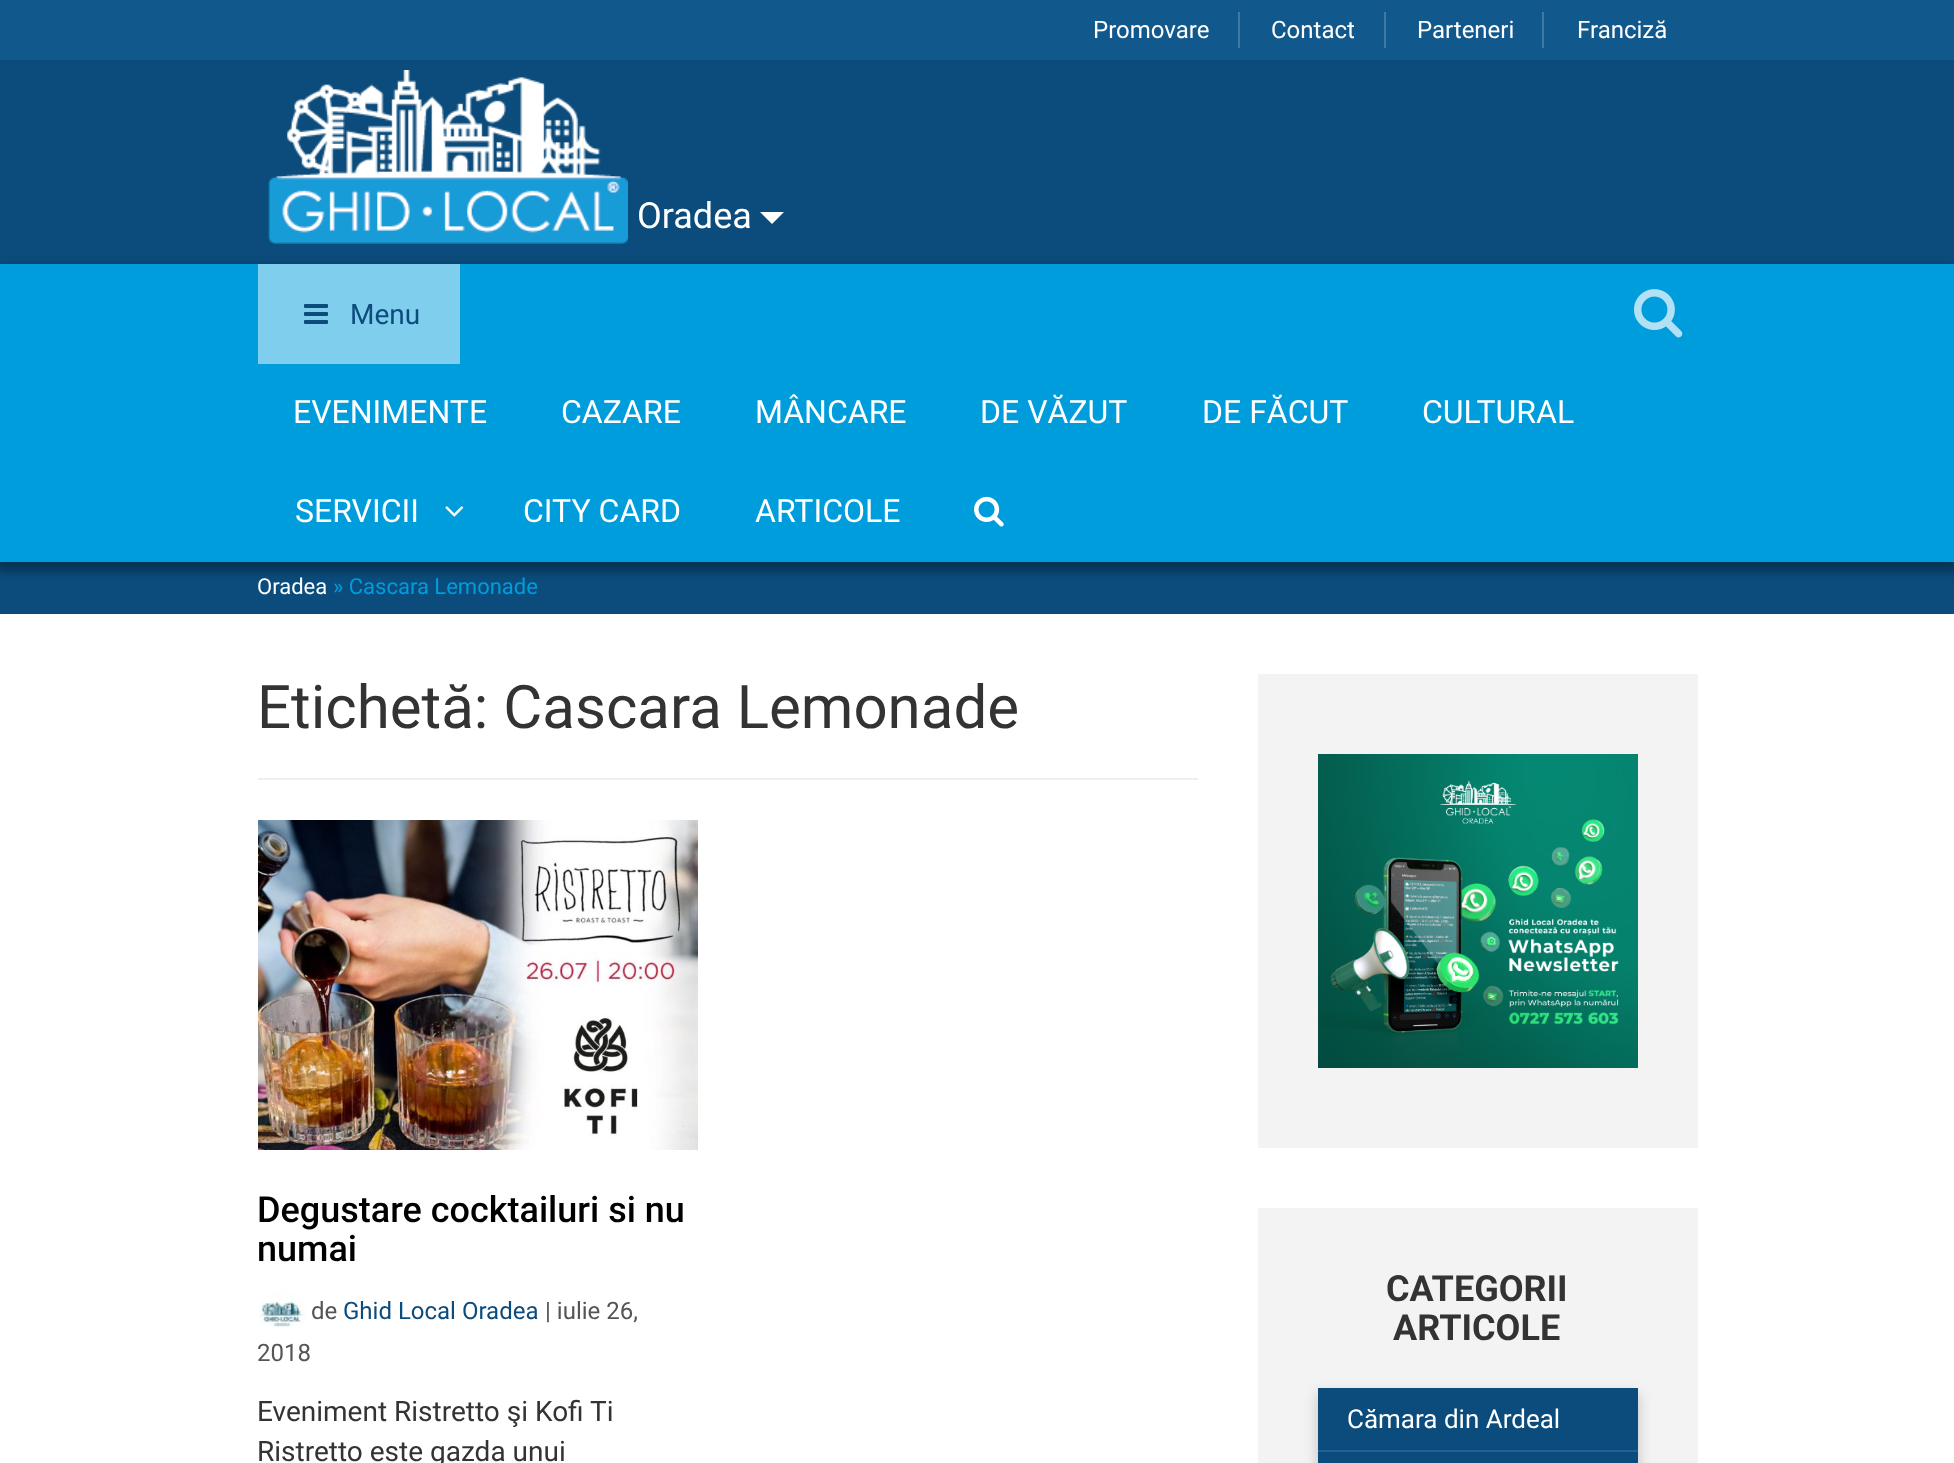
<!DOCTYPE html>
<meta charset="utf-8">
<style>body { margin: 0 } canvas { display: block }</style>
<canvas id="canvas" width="1954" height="1463"></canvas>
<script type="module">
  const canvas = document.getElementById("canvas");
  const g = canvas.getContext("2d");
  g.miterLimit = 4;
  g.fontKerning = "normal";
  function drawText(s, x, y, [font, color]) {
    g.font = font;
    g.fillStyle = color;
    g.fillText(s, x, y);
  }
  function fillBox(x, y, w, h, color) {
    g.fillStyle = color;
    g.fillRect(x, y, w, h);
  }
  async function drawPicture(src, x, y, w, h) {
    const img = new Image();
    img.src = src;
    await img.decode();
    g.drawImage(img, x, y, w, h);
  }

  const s1 = ["24px Roboto", "#FFFFFF"];
  const s2 = ["36px Roboto", "#FFFFFF"];
  const s3 = ["28px Roboto", "#0B4C7C"];
  const s4 = ["32px Roboto", "#FFFFFF"];
  const s5 = ["22px Roboto", "#FFFFFF"];
  const s6 = ["22px Roboto", "#009DDC"];
  const s7 = ["60px Roboto", "#333333"];
  const s8 = ["500 36px Roboto", "#000000"];
  const s9 = ["24px Roboto", "#555555"];
  const s10 = ["24px Roboto", "#0B4C7C"];
  const s11 = ["28px Roboto", "#333333"];
  const s12 = ["bold 36px Roboto", "#333333"];
  const s13 = ["26px Roboto", "#FFFFFF"];

  fillBox(0, 0, 1954, 1463, "#FFFFFF");
  fillBox(0, 0, 1954, 60, "#11588D");
  drawText("Promovare", 1093, 38, s1);
  fillBox(1238, 12, 2, 36, "#4179A4");
  drawText("Contact", 1271, 38, s1);
  fillBox(1384, 12, 2, 36, "#4179A4");
  drawText("Parteneri", 1417, 38, s1);
  fillBox(1542, 12, 2, 36, "#4179A4");
  drawText("Franciză", 1577, 38, s1);
  fillBox(0, 60, 1954, 204, "#0B4C7C");
  await drawPicture("pic1.png", 268, 70, 360, 174);
  drawText("Oradea", 637, 228, s2);
  g.beginPath();
  g.moveTo(760, 212);
  g.lineTo(784, 212);
  g.lineTo(772, 224);
  g.closePath();
  g.fill();
  fillBox(0, 562, 1954, 52, "#0B4C7C");
  g.fillStyle = "rgba(0, 0, 0, 0.3)";
  g.filter = "blur(4px)";
  g.beginPath();
  g.rect(-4, 266, 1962, 306);
  g.fill();
  g.filter = "none";
  fillBox(0, 264, 1954, 298, "#009DDC");
  fillBox(258, 264, 202, 100, "#80CEEE");
  await drawPicture("pic2.png", 304, 304, 24, 20);
  drawText("Menu", 350, 324, s3);
  await drawPicture("pic3.png", 1634, 289, 49, 49);
  drawText("EVENIMENTE", 293, 423, s4);
  drawText("CAZARE", 561, 423, s4);
  drawText("MÂNCARE", 755, 423, s4);
  drawText("DE VĂZUT", 980, 423, s4);
  drawText("DE FĂCUT", 1202, 423, s4);
  drawText("CULTURAL", 1422, 423, s4);
  drawText("SERVICII", 295, 522, s4);
  await drawPicture("pic4.png", 445, 506, 19, 11);
  drawText("CITY CARD", 523, 522, s4);
  drawText("ARTICOLE", 755, 522, s4);
  await drawPicture("pic5.png", 974, 496, 30, 31);
  drawText("Oradea", 257, 594, s5);
  drawText("» Cascara Lemonade", 333, 594, s6);
  fillBox(258, 778, 940, 2, "#EEEEEE");
  drawText("Etichetă: Cascara Lemonade", 257, 728, s7);
  await drawPicture("pic6.png", 258, 820, 440, 330);
  drawText("Degustare cocktailuri si nu", 257, 1222, s8);
  drawText("numai", 257, 1261, s8);
  await drawPicture("pic7.png", 259, 1290, 47, 38);
  drawText("de", 311, 1319, s9);
  drawText("Ghid Local Oradea", 343, 1319, s10);
  drawText("| iulie 26,", 545, 1319, s9);
  drawText("2018", 257, 1361, s9);
  drawText("Eveniment Ristretto şi Kofi Ti", 257, 1421, s11);
  drawText("Ristretto este gazda unui", 257, 1461, s11);
  fillBox(1258, 674, 440, 474, "#F3F3F3");
  await drawPicture("pic8.png", 1318, 754, 320, 314);
  fillBox(1258, 1208, 440, 255, "#F3F3F3");
  drawText("CATEGORII", 1386, 1301, s12);
  drawText("ARTICOLE", 1393, 1340, s12);
  g.fillStyle = "rgba(0, 0, 0, 0.2)";
  g.filter = "blur(7px)";
  g.beginPath();
  g.rect(1318, 1394, 320, 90);
  g.fill();
  g.filter = "none";
  fillBox(1318, 1388, 320, 62, "#0B4C7C");
  fillBox(1318, 1450, 320, 2, "#1A6298");
  drawText("Cămara din Ardeal", 1347, 1428, s13);
  fillBox(1318, 1452, 320, 11, "#0B4C7C");
</script>
